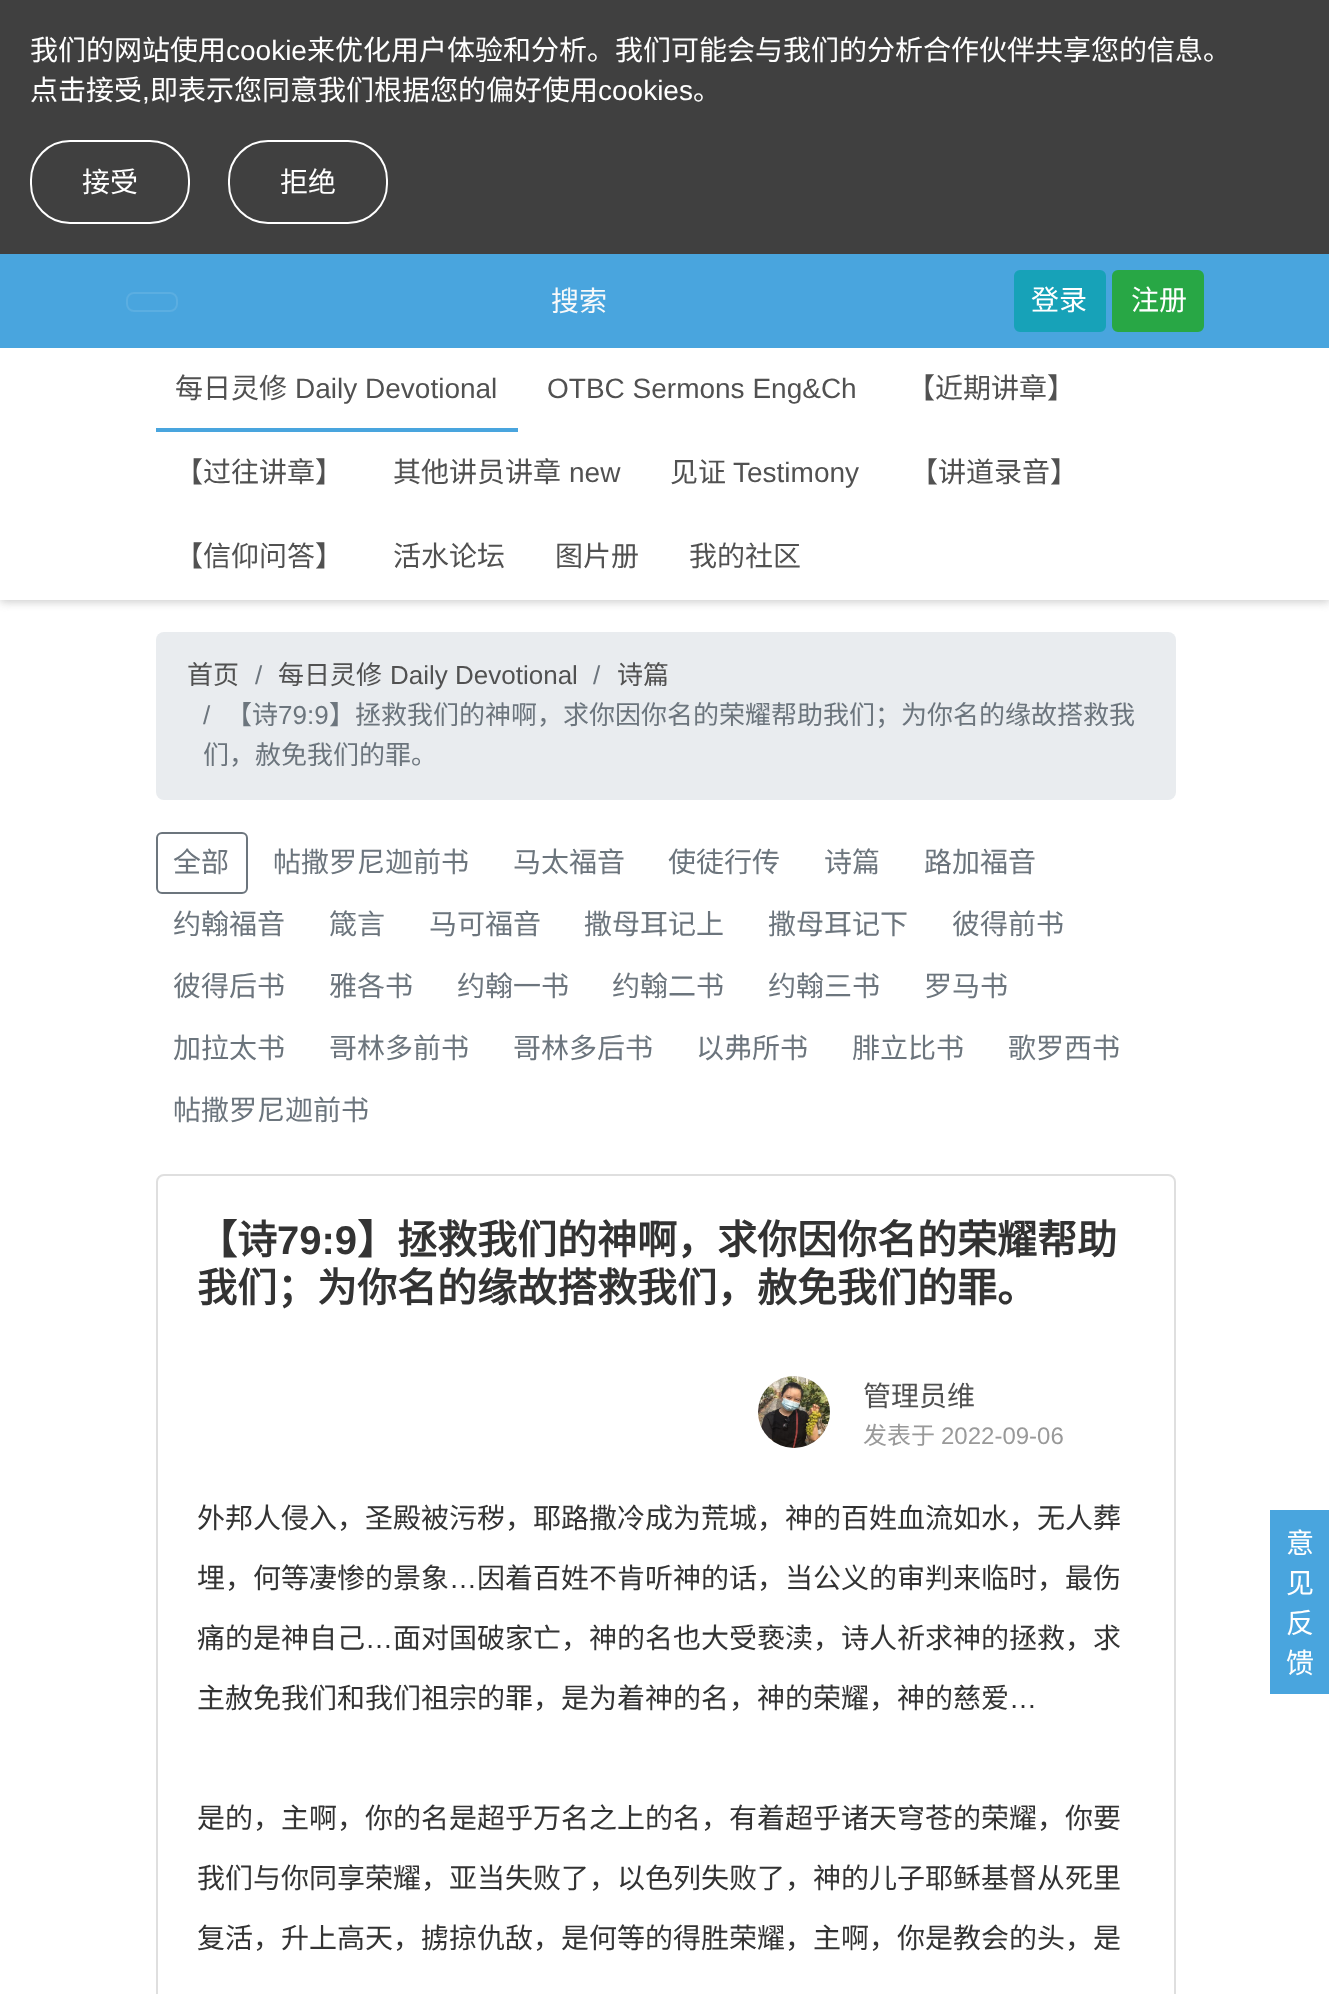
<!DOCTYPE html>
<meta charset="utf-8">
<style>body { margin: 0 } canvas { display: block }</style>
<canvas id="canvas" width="1329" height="1994"></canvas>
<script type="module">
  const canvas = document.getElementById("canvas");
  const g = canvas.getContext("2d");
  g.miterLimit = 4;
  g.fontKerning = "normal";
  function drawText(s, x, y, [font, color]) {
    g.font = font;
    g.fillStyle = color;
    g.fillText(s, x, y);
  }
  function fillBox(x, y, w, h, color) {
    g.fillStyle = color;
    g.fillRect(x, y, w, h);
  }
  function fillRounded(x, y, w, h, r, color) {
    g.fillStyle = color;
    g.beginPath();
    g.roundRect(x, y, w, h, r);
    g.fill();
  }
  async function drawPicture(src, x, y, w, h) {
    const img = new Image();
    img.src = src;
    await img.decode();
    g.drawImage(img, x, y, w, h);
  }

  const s1 = ["28px Noto Sans CJK SC", "#FFFFFF"];
  const s2 = ["28px Liberation Sans", "#FFFFFF"];
  const s3 = ["28px Noto Sans CJK SC", "#F8F9FA"];
  const s4 = ["28px Noto Sans CJK SC", "#515151"];
  const s5 = ["28px Liberation Sans", "#515151"];
  const s6 = ["26px Noto Sans CJK SC", "#515151"];
  const s7 = ["26px Liberation Sans", "#6C757D"];
  const s8 = ["26px Liberation Sans", "#515151"];
  const s9 = ["26px Noto Sans CJK SC", "#6C757D"];
  const s10 = ["28px Noto Sans CJK SC", "#6C757D"];
  const s11 = ["bold 40px Noto Sans CJK SC", "#333333"];
  const s12 = ["bold 40px Liberation Sans", "#333333"];
  const s13 = ["24px Noto Sans CJK SC", "#999999"];
  const s14 = ["24px Liberation Sans", "#999999"];
  const s15 = ["28px Noto Sans CJK SC", "#333333"];
  const s16 = ["28px Liberation Sans", "#333333"];

  fillBox(0, 0, 1329, 1994, "#FFFFFF");
  fillBox(0, 0, 1329, 254, "#404040");
  drawText("我们的网站使用", 30, 60, s1);
  drawText("cookie", 226, 60, s2);
  drawText("来优化用户体验和分析。我们可能会与我们的分析合作伙伴共享您的信息。", 307, 60, s1);
  drawText("点击接受", 30, 100, s1);
  drawText(",", 142, 100, s2);
  drawText("即表示您同意我们根据您的偏好使用", 150, 100, s1);
  drawText("cookies", 598, 100, s2);
  drawText("。", 693, 100, s1);
  g.beginPath();
  g.roundRect(31, 141, 158, 82, 39);
  g.strokeStyle = "#FFFFFF";
  g.lineWidth = 2;
  g.stroke();
  drawText("接受", 82, 192, s1);
  g.beginPath();
  g.roundRect(229, 141, 158, 82, 39);
  g.stroke();
  drawText("拒绝", 280, 192, s1);
  g.save();
  g.beginPath();
  g.rect(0, 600, 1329, 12);
  g.clip();
  g.fillStyle = "#CCCCCC";
  g.filter = "blur(5px)";
  g.beginPath();
  g.rect(0, 350, 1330, 252);
  g.fill();
  g.filter = "none";
  g.restore();
  fillBox(0, 254, 1329, 94, "#49A5DE");
  g.beginPath();
  g.roundRect(127, 293, 50, 18, 7);
  g.strokeStyle = "#5BAEE1";
  g.stroke();
  drawText("搜索", 551, 311, s3);
  g.fillStyle = "#17A2B8";
  g.beginPath();
  g.roundRect(1015, 271, 90, 60, 5);
  g.fill();
  g.strokeStyle = "#17A2B8";
  g.stroke();
  drawText("登录", 1031, 310, s1);
  g.fillStyle = "#28A745";
  g.beginPath();
  g.roundRect(1113, 271, 90, 60, 5);
  g.fill();
  g.strokeStyle = "#28A745";
  g.stroke();
  drawText("注册", 1131, 310, s1);
  fillBox(156, 428, 362, 4, "#49A5DE");
  drawText("每日灵修", 175, 398, s4);
  drawText("Daily Devotional", 295, 398, s5);
  drawText("OTBC Sermons Eng&Ch", 547, 398, s5);
  drawText("【近期讲章】", 907, 398, s4);
  drawText("【过往讲章】", 175, 482, s4);
  drawText("其他讲员讲章", 393, 482, s4);
  drawText("new", 569, 482, s5);
  drawText("见证", 670, 482, s4);
  drawText("Testimony", 733, 482, s5);
  drawText("【讲道录音】", 910, 482, s4);
  drawText("【信仰问答】", 175, 566, s4);
  drawText("活水论坛", 393, 566, s4);
  drawText("图片册", 555, 566, s4);
  drawText("我的社区", 689, 566, s4);
  fillRounded(156, 632, 1020, 168, 8, "#E9ECEF");
  drawText("首页", 187, 684, s6);
  drawText("/", 255, 684, s7);
  drawText("每日灵修", 278, 684, s6);
  drawText("Daily Devotional", 390, 684, s8);
  drawText("/", 593, 684, s7);
  drawText("诗篇", 617, 684, s6);
  drawText("/", 203, 724, s7);
  drawText("【诗", 226, 724, s9);
  drawText("79:9", 278, 724, s7);
  drawText("】拯救我们的神啊，求你因你名的荣耀帮助我们；为你名的缘故搭救我", 329, 724, s9);
  drawText("们，赦免我们的罪。", 203, 764, s9);
  g.beginPath();
  g.roundRect(157, 833, 90, 60, 5);
  g.strokeStyle = "#6C757D";
  g.stroke();
  drawText("全部", 173, 872, s10);
  drawText("帖撒罗尼迦前书", 273, 872, s10);
  drawText("马太福音", 513, 872, s10);
  drawText("使徒行传", 668, 872, s10);
  drawText("诗篇", 824, 872, s10);
  drawText("路加福音", 924, 872, s10);
  drawText("约翰福音", 173, 934, s10);
  drawText("箴言", 329, 934, s10);
  drawText("马可福音", 429, 934, s10);
  drawText("撒母耳记上", 584, 934, s10);
  drawText("撒母耳记下", 768, 934, s10);
  drawText("彼得前书", 952, 934, s10);
  drawText("彼得后书", 173, 996, s10);
  drawText("雅各书", 329, 996, s10);
  drawText("约翰一书", 457, 996, s10);
  drawText("约翰二书", 612, 996, s10);
  drawText("约翰三书", 768, 996, s10);
  drawText("罗马书", 924, 996, s10);
  drawText("加拉太书", 173, 1058, s10);
  drawText("哥林多前书", 329, 1058, s10);
  drawText("哥林多后书", 513, 1058, s10);
  drawText("以弗所书", 696, 1058, s10);
  drawText("腓立比书", 852, 1058, s10);
  drawText("歌罗西书", 1008, 1058, s10);
  drawText("帖撒罗尼迦前书", 173, 1120, s10);
  g.beginPath();
  g.roundRect(157, 1175, 1018, 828, 7);
  g.strokeStyle = "#DFDFDF";
  g.stroke();
  drawText("【诗", 197, 1254, s11);
  drawText("79:9", 277, 1254, s12);
  drawText("】拯救我们的神啊，求你因你名的荣耀帮助", 357, 1254, s11);
  drawText("我们；为你名的缘故搭救我们，赦免我们的罪。", 197, 1302, s11);
  await drawPicture("pic1.png", 758, 1376, 72, 72);
  drawText("管理员维", 863, 1406, s4);
  drawText("发表于", 863, 1444, s13);
  drawText("2022-09-06", 941, 1444, s14);
  drawText("外邦人侵入，圣殿被污秽，耶路撒冷成为荒城，神的百姓血流如水，无人葬", 197, 1528, s15);
  drawText("埋，何等凄惨的景象", 197, 1588, s15);
  drawText("…", 449, 1588, s16);
  drawText("因着百姓不肯听神的话，当公义的审判来临时，最伤", 477, 1588, s15);
  drawText("痛的是神自己", 197, 1648, s15);
  drawText("…", 365, 1648, s16);
  drawText("面对国破家亡，神的名也大受亵渎，诗人祈求神的拯救，求", 393, 1648, s15);
  drawText("主赦免我们和我们祖宗的罪，是为着神的名，神的荣耀，神的慈爱", 197, 1708, s15);
  drawText("…", 1009, 1708, s16);
  drawText("是的，主啊，你的名是超乎万名之上的名，有着超乎诸天穹苍的荣耀，你要", 197, 1828, s15);
  drawText("我们与你同享荣耀，亚当失败了，以色列失败了，神的儿子耶稣基督从死里", 197, 1888, s15);
  drawText("复活，升上高天，掳掠仇敌，是何等的得胜荣耀，主啊，你是教会的头，是", 197, 1948, s15);
  fillBox(1270, 1510, 59, 184, "#49A5DE");
  drawText("意", 1286, 1553, s1);
  drawText("见", 1286, 1593, s1);
  drawText("反", 1286, 1633, s1);
  drawText("馈", 1286, 1673, s1);
</script>
